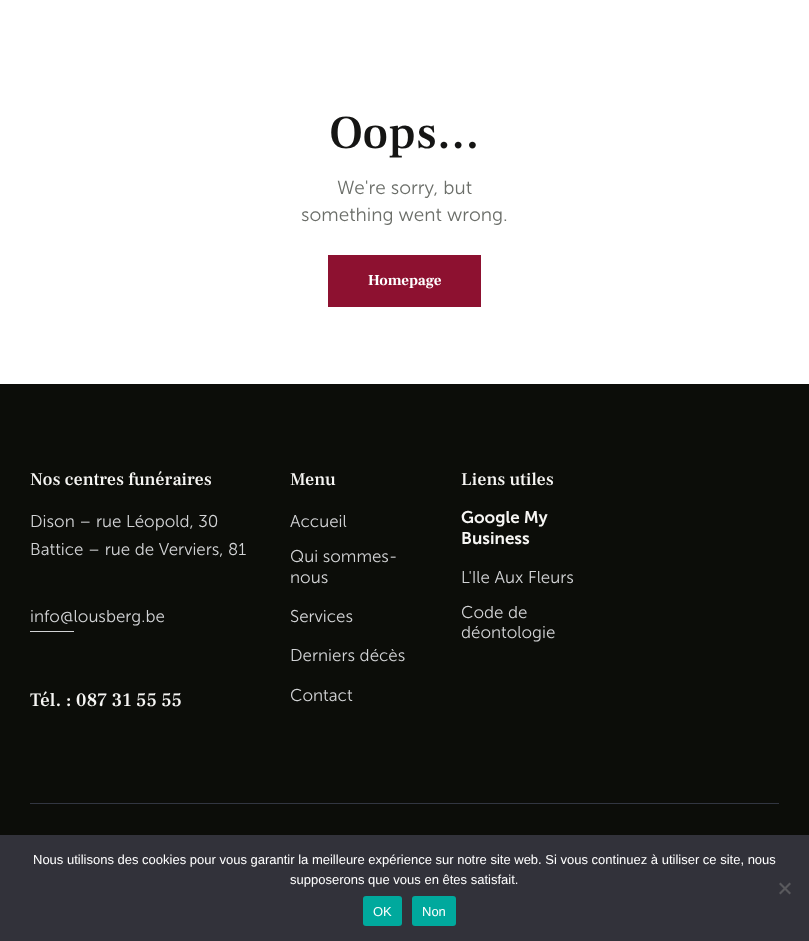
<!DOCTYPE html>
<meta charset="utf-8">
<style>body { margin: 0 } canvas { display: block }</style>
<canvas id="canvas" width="809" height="941"></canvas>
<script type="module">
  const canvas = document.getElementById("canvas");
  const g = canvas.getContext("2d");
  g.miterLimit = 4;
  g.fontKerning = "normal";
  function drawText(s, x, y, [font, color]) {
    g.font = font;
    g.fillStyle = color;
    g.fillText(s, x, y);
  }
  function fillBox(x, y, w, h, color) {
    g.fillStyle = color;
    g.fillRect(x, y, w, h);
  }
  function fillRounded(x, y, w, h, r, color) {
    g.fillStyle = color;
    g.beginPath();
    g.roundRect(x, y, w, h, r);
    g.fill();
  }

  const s1 = ["500 47px Frank Ruhl Libre", "#151514"];
  const s2 = ["300 19px 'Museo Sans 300'", "#6B6E69"];
  const s3 = ["bold 15px Frank Ruhl Libre", "#FFFFFF"];
  const s4 = ["500 18px Frank Ruhl Libre", "#F7F6F4"];
  const s5 = ["300 17px 'Museo Sans 300'", "#D2D3D5"];
  const s6 = ["500 19px Frank Ruhl Libre", "#F7F6F4"];
  const s7 = ["600 17px 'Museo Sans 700'", "#F7F6F4"];
  const s8 = ["13px Liberation Sans", "#FFFFFF"];

  fillBox(0, 0, 809, 941, "#FFFFFF");
  drawText("Oops...", 329, 148, s1);
  drawText("We're sorry, but", 337, 194, s2);
  drawText("something went wrong.", 301, 221, s2);
  fillBox(328, 255, 153, 52, "#8D1130");
  drawText("Homepage", 368, 285, s3);
  fillBox(0, 384, 809, 451, "#0C0D09");
  drawText("Nos centres funéraires", 30, 485, s4);
  drawText("Dison – rue Léopold, 30", 30, 527, s5);
  drawText("Battice – rue de Verviers, 81", 30, 555, s5);
  drawText("info@lousberg.be", 30, 622, s5);
  fillBox(30, 631, 44, 1, "#D2D3D5");
  drawText("Tél. : 087 31 55 55", 30, 706, s6);
  drawText("Menu", 290, 485, s4);
  drawText("Accueil", 290, 527, s5);
  drawText("Qui sommes-", 290, 562, s5);
  drawText("nous", 290, 583, s5);
  drawText("Services", 290, 622, s5);
  drawText("Derniers décès", 290, 661, s5);
  drawText("Contact", 290, 701, s5);
  drawText("Liens utiles", 461, 485, s4);
  drawText("Google My", 461, 523, s7);
  drawText("Business", 461, 544, s7);
  drawText("L'Ile Aux Fleurs", 461, 583, s5);
  drawText("Code de", 461, 618, s5);
  drawText("déontologie", 461, 638, s5);
  fillBox(30, 803, 749, 1, "#323641");
  fillBox(0, 835, 809, 106, "#32323A");
  drawText("Nous utilisons des cookies pour vous garantir la meilleure expérience sur notre site web. Si vous continuez à utiliser ce site, nous", 33, 864, s8);
  drawText("supposerons que vous en êtes satisfait.", 290, 884, s8);
  g.fillStyle = "#59595D";
  g.beginPath();
  g.moveTo(789.5, 882.5);
  g.lineTo(791, 884);
  g.lineTo(780.5, 894.5);
  g.lineTo(779, 893);
  g.closePath();
  g.fill();
  g.beginPath();
  g.moveTo(779, 884);
  g.lineTo(780.5, 882.5);
  g.lineTo(791, 893);
  g.lineTo(789.5, 894.5);
  g.closePath();
  g.fill();
  fillRounded(363, 896, 39, 30, 3, "#00A99D");
  drawText("OK", 373, 916, s8);
  fillRounded(412, 896, 44, 30, 3, "#00A99D");
  drawText("Non", 422, 916, s8);
</script>
